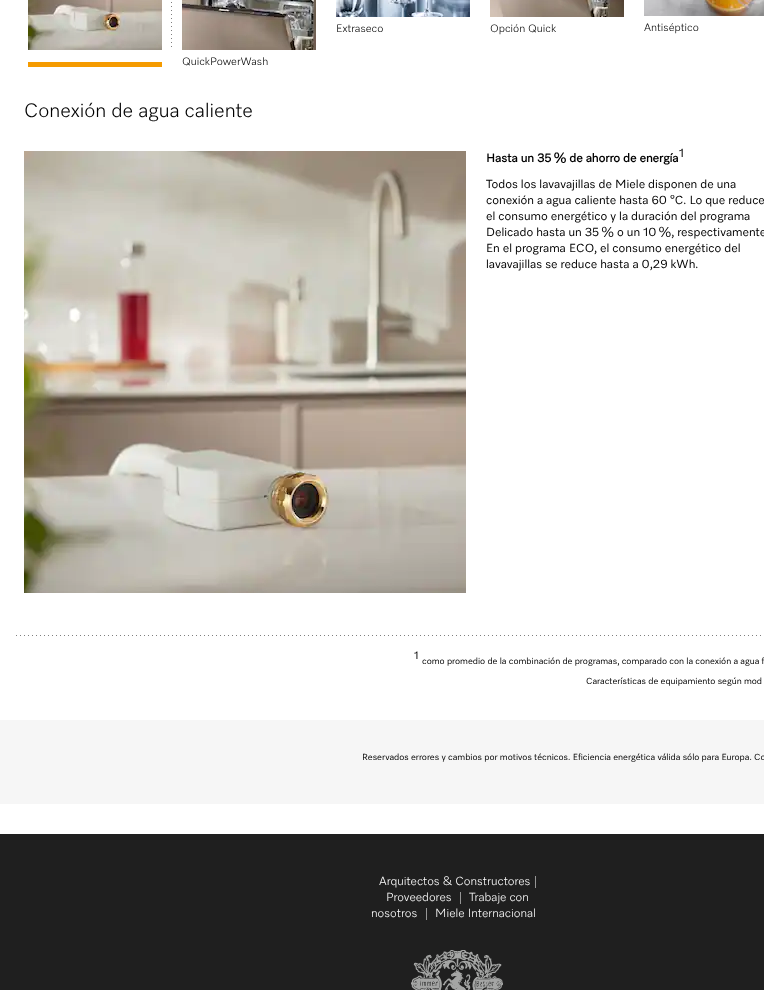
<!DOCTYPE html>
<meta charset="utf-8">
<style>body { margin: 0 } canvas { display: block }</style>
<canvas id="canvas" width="764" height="990"></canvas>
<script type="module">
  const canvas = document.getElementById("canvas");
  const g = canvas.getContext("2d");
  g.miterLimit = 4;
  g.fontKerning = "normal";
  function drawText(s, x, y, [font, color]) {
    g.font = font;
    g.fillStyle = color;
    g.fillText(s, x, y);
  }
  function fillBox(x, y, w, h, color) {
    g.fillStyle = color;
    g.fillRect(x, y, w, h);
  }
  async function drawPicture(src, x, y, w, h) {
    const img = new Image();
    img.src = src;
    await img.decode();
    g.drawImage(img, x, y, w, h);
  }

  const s1 = ["300 11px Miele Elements", "#000000"];
  const s2 = ["300 20px Miele Elements", "#000000"];
  const s3 = ["bold 12px Miele Elements", "#000000"];
  const s4 = ["12px Miele Elements", "#000000"];
  const s5 = ["11px Miele Elements", "#000000"];
  const s6 = ["9px Miele Elements", "#000000"];
  const s7 = ["300 12px Miele Elements", "#FFFFFF"];

  fillBox(0, 0, 764, 990, "#FFFFFF");
  fillBox(28, 62, 134, 5, "#F59B00");
  await drawPicture("pic1.png", 28, 0, 134, 50);
  await drawPicture("pic2.png", 171, 2, 1, 45);
  await drawPicture("pic3.png", 336, 0, 134, 17);
  drawText("Extraseco", 336, 32, s1);
  await drawPicture("pic4.png", 490, 0, 134, 17);
  drawText("Opción Quick", 490, 32, s1);
  await drawPicture("pic5.png", 644, 0, 120, 16);
  drawText("Antiséptico", 644, 31, s1);
  await drawPicture("pic6.png", 182, 0, 134, 50);
  drawText("QuickPowerWash", 182, 65, s1);
  drawText("Conexión de agua caliente", 24, 117, s2);
  await drawPicture("pic7.png", 24, 151, 442, 442);
  drawText("Hasta un 35 % de ahorro de energía", 486, 162, s3);
  drawText("1", 679, 157, s4);
  drawText("Todos los lavavajillas de Miele disponen de una", 486, 188, s4);
  drawText("conexión a agua caliente hasta 60 °C. Lo que reduce", 486, 204, s4);
  drawText("el consumo energético y la duración del programa", 486, 220, s4);
  drawText("Delicado hasta un 35 % o un 10 %, respectivamente", 486, 236, s4);
  drawText("En el programa ECO, el consumo energético del", 486, 252, s4);
  drawText("lavavajillas se reduce hasta a 0,29 kWh.", 486, 268, s4);
  await drawPicture("pic8.png", 16, 635, 745, 1);
  drawText("1", 414, 659, s5);
  drawText("como promedio de la combinación de programas, comparado con la conexión a agua f", 422, 664, s6);
  drawText("Características de equipamiento según mod", 586, 684, s6);
  fillBox(0, 720, 764, 84, "#F6F6F6");
  drawText("Reservados errores y cambios por motivos técnicos. Eficiencia energética válida sólo para Europa. Co", 362, 760, s6);
  fillBox(0, 834, 764, 156, "#1F1F1F");
  drawText("Arquitectos & Constructores", 379, 885, s7);
  fillBox(535, 876, 1, 12, "#969696");
  drawText("Proveedores", 386, 901, s7);
  fillBox(460, 892, 1, 12, "#969696");
  drawText("Trabaje con", 469, 901, s7);
  drawText("nosotros", 371, 917, s7);
  fillBox(426, 908, 1, 12, "#969696");
  drawText("Miele Internacional", 435, 917, s7);
  await drawPicture("pic9.png", 411, 950, 92, 40);
</script>
